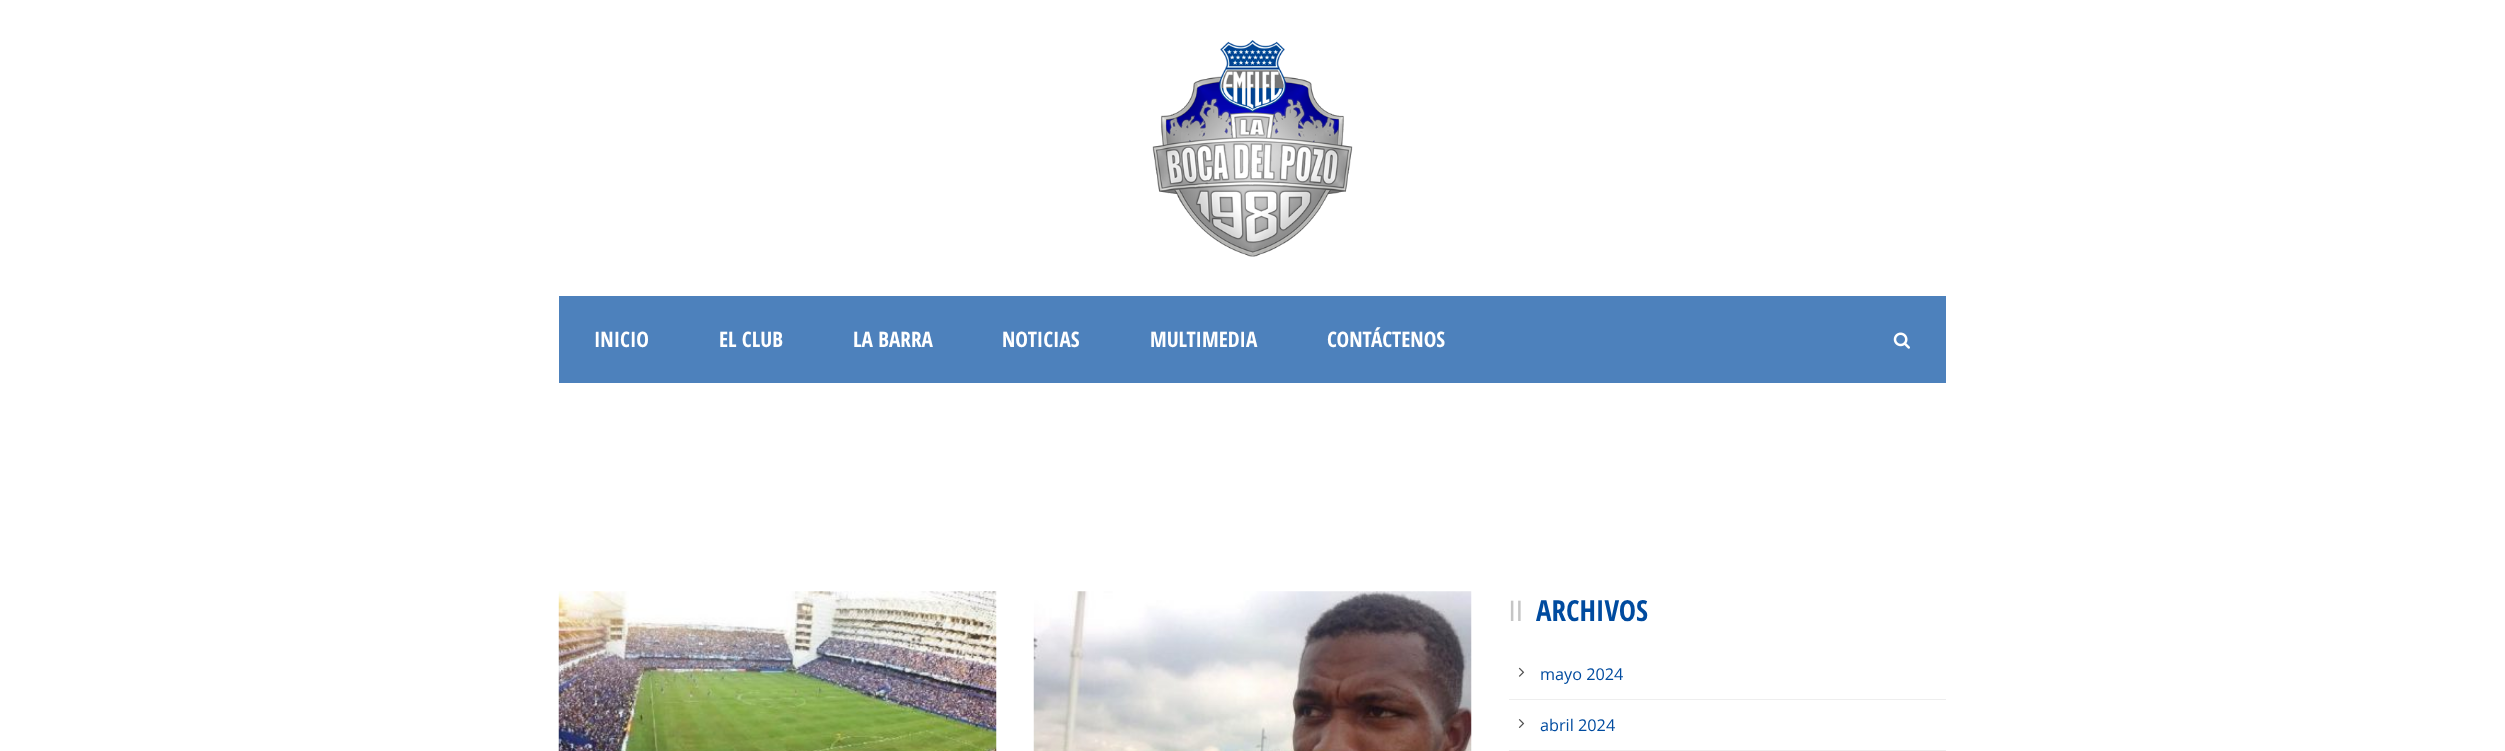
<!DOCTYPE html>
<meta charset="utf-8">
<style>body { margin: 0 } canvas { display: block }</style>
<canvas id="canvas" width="2505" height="751"></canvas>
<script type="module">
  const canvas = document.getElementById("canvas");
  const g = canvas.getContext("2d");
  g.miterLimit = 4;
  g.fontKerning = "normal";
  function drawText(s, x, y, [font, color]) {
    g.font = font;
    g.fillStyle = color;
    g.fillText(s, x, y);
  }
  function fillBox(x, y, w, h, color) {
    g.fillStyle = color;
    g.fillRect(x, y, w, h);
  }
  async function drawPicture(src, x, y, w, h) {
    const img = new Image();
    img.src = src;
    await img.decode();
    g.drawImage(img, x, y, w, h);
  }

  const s1 = ["bold 21.25px Open Sans Condensed", "#FFFFFF"];
  const s2 = ["28px Liberation Sans", "#C5C5C5"];
  const s3 = ["bold 29px Open Sans Condensed", "#004B9F"];
  const s4 = ["16.25px Open Sans", "#004B9F"];

  fillBox(0, 0, 2505, 751, "#FFFFFF");
  await drawPicture("pic1.png", 1152, 40, 201, 217);
  fillBox(559, 296, 1387, 87, "#4D81BC");
  drawText("INICIO", 594, 347, s1);
  drawText("EL CLUB", 719, 347, s1);
  drawText("LA BARRA", 853, 347, s1);
  drawText("NOTICIAS", 1002, 347, s1);
  drawText("MULTIMEDIA", 1150, 347, s1);
  drawText("CONTÁCTENOS", 1327, 347, s1);
  await drawPicture("pic2.png", 1893, 332, 17, 17);
  await drawPicture("pic3.png", 558, 591, 439, 160);
  await drawPicture("pic4.png", 1033, 591, 439, 160);
  g.letterSpacing = "1px";
  drawText("ll", 1509, 621, s2);
  g.letterSpacing = "0px";
  drawText("ARCHIVOS", 1536, 621, s3);
  fillBox(1509, 699, 437, 1, "#EEEEEE");
  await drawPicture("pic5.png", 1518, 667, 7, 10);
  drawText("mayo 2024", 1540, 680, s4);
  fillBox(1509, 750, 437, 1, "#EEEEEE");
  await drawPicture("pic6.png", 1518, 719, 7, 9);
  drawText("abril 2024", 1540, 731, s4);
</script>
